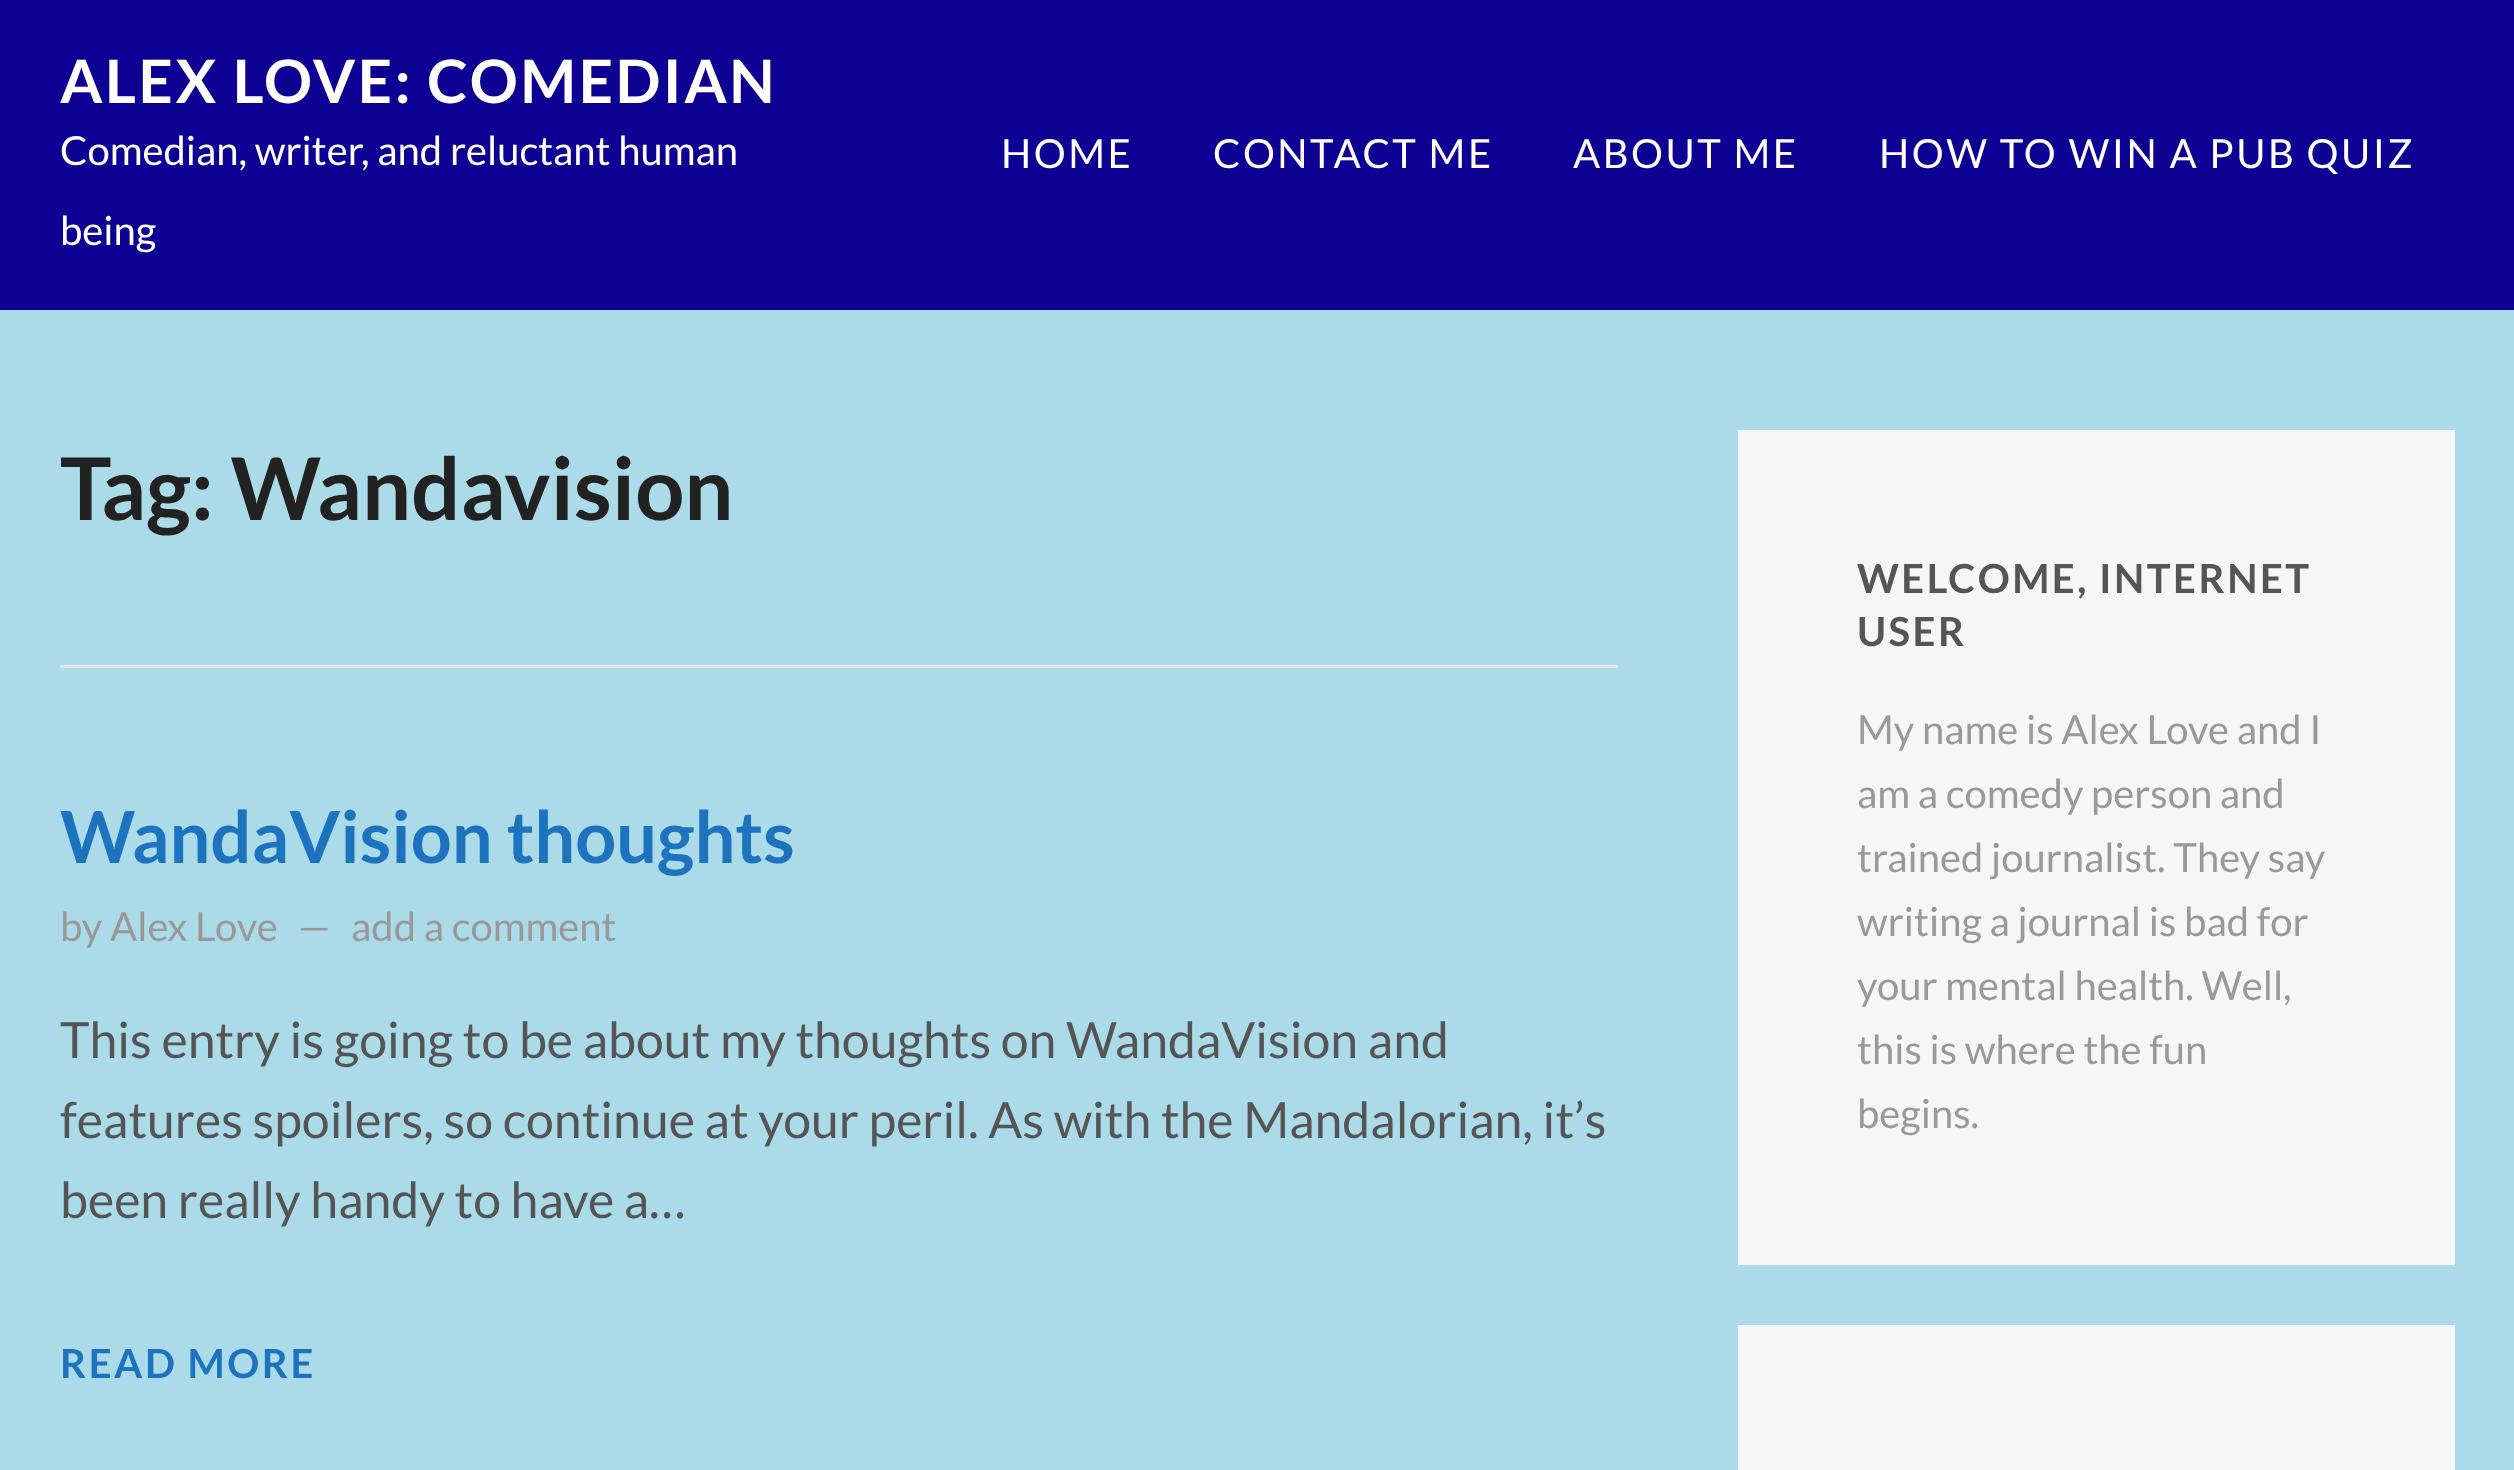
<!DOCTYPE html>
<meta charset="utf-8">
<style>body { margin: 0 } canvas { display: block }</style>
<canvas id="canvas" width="2514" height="1470"></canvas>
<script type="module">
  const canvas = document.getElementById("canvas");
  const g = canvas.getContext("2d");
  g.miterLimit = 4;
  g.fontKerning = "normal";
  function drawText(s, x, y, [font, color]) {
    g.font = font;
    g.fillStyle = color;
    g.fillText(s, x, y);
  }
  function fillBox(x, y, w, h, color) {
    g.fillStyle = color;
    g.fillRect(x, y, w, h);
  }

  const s1 = ["bold 60px Lato", "#FFFFFF"];
  const s2 = ["40px Lato", "#FFFFFF"];
  const s3 = ["bold 86.5px Lato", "#222222"];
  const s4 = ["bold 72px Lato", "#1E73BE"];
  const s5 = ["40px Lato", "#999999"];
  const s6 = ["50px Lato", "#555555"];
  const s7 = ["bold 40px Lato", "#1E73BE"];
  const s8 = ["bold 40px Lato", "#555555"];

  fillBox(0, 0, 2514, 1470, "#ABDBE8");
  fillBox(0, 0, 2514, 310, "#0E0093");
  g.letterSpacing = "2.5px";
  drawText("ALEX LOVE: COMEDIAN", 60, 103, s1);
  g.letterSpacing = "0px";
  drawText("Comedian, writer, and reluctant human", 60, 165, s2);
  drawText("being", 60, 245, s2);
  g.letterSpacing = "2.5px";
  drawText("HOME", 1001, 168, s2);
  drawText("CONTACT ME", 1213, 168, s2);
  drawText("ABOUT ME", 1573, 168, s2);
  drawText("HOW TO WIN A PUB QUIZ", 1879, 168, s2);
  fillBox(60, 665, 1558, 3, "#E6E6E6");
  g.letterSpacing = "0px";
  drawText("Tag: Wandavision", 60, 520, s3);
  drawText("WandaVision thoughts", 60, 863, s4);
  drawText("by Alex Love", 60, 941, s5);
  drawText("—", 298, 941, s5);
  drawText("add a comment", 351, 941, s5);
  drawText("This entry is going to be about my thoughts on WandaVision and", 60, 1058, s6);
  drawText("features spoilers, so continue at your peril. As with the Mandalorian, it’s", 60, 1138, s6);
  drawText("been really handy to have a…", 60, 1218, s6);
  g.letterSpacing = "2.5px";
  drawText("READ MORE", 60, 1378, s7);
  fillBox(1738, 430, 717, 835, "#F6F6F6");
  drawText("WELCOME, INTERNET", 1857, 593, s8);
  drawText("USER", 1857, 646, s8);
  g.letterSpacing = "0px";
  drawText("My name is Alex Love and I", 1857, 744, s5);
  drawText("am a comedy person and", 1857, 808, s5);
  drawText("trained journalist. They say", 1857, 872, s5);
  drawText("writing a journal is bad for", 1857, 936, s5);
  drawText("your mental health. Well,", 1857, 1000, s5);
  drawText("this is where the fun", 1857, 1064, s5);
  drawText("begins.", 1857, 1128, s5);
  fillBox(1738, 1325, 717, 145, "#F6F6F6");
</script>
